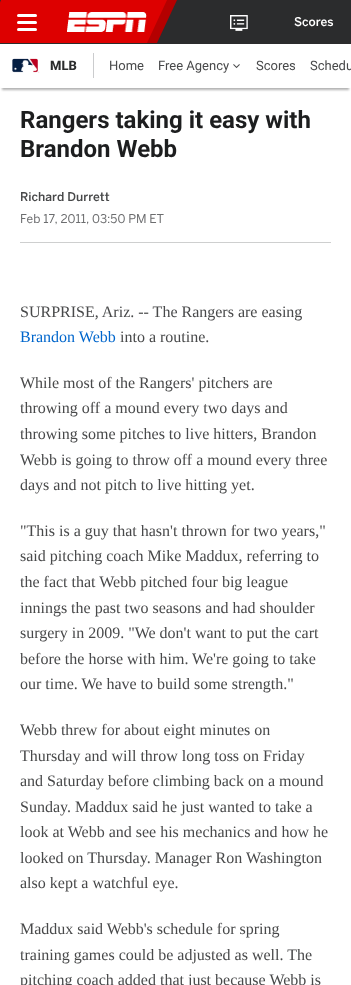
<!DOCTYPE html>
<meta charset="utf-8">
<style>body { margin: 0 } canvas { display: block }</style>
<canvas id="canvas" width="351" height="985"></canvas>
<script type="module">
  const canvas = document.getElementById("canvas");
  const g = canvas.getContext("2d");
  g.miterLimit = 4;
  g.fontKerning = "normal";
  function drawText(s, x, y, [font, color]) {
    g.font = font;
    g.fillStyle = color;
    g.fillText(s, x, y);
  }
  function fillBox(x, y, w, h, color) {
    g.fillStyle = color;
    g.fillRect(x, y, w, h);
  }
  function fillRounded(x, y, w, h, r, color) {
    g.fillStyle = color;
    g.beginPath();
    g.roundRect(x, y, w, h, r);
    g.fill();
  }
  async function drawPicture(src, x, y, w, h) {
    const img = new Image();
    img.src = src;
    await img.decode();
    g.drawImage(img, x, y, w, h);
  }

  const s1 = ["500 12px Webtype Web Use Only", "#FFFFFF"];
  const s2 = ["800 13px Roboto", "#2B2C2D"];
  const s3 = ["13px Roboto", "#48494A"];
  const s4 = ["bold 24px Roboto", "#1D1E1F"];
  const s5 = ["500 12px Webtype Web Use Only", "#48494A"];
  const s6 = ["12px Webtype Web Use Only", "#6C6D6F"];
  const s7 = ["16px Liberation Serif", "#48494A"];
  const s8 = ["16px Liberation Serif", "#0066CC"];

  fillBox(0, 0, 351, 985, "#FFFFFF");
  fillBox(0, 0, 351, 44, "#2B2C2D");
  g.fillStyle = "#B40000";
  g.beginPath();
  g.moveTo(54, 0);
  g.lineTo(177, 0);
  g.lineTo(157, 43);
  g.lineTo(34, 43);
  g.closePath();
  g.fill();
  g.fillStyle = "#DD0000";
  g.beginPath();
  g.moveTo(1, 0);
  g.lineTo(167, 0);
  g.lineTo(147, 43);
  g.lineTo(-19, 43);
  g.closePath();
  g.fill();
  await drawPicture("pic1.png", 67, 12, 80, 20);
  fillRounded(17, 21, 20, 3, 1.5, "#FFFFFF");
  fillRounded(17, 14, 20, 3, 1.5, "#FFFFFF");
  fillRounded(17, 28, 20, 3, 1.5, "#FFFFFF");
  await drawPicture("pic2.png", 230, 15, 18, 16);
  drawText("Scores", 294, 26, s1);
  g.fillStyle = "rgba(0, 0, 0, 0.3)";
  g.filter = "blur(1px)";
  g.beginPath();
  g.rect(2, 50, 347, 40);
  g.fill();
  g.filter = "none";
  fillRounded(0, 44, 351, 44, 1, "#FFFFFF");
  await drawPicture("pic3.png", 12, 58, 28, 15);
  drawText("MLB", 50, 70, s2);
  fillBox(93, 53, 1, 25, "#CBCCCE");
  drawText("Home", 109, 70, s3);
  drawText("Free Agency", 158, 70, s3);
  await drawPicture("pic4.png", 233, 64, 7, 5);
  drawText("Scores", 256, 70, s3);
  drawText("Schedu", 310, 70, s3);
  drawText("Rangers taking it easy with", 20, 128, s4);
  drawText("Brandon Webb", 20, 157, s4);
  fillBox(20, 242, 311, 1, "#CECFCF");
  drawText("Richard Durrett", 20, 201, s5);
  drawText("Feb 17, 2011, 03:50 PM ET", 20, 223, s6);
  drawText("SURPRISE, Ariz. -- The Rangers are easing", 20, 317, s7);
  drawText("Brandon Webb", 20, 342, s8);
  drawText("into a routine.", 120, 342, s7);
  drawText("While most of the Rangers' pitchers are", 20, 388, s7);
  drawText("throwing off a mound every two days and", 20, 413, s7);
  drawText("throwing some pitches to live hitters, Brandon", 20, 439, s7);
  drawText("Webb is going to throw off a mound every three", 20, 465, s7);
  drawText("days and not pitch to live hitting yet.", 20, 490, s7);
  drawText("\"This is a guy that hasn't thrown for two years,\"", 20, 536, s7);
  drawText("said pitching coach Mike Maddux, referring to", 20, 561, s7);
  drawText("the fact that Webb pitched four big league", 20, 587, s7);
  drawText("innings the past two seasons and had shoulder", 20, 613, s7);
  drawText("surgery in 2009. \"We don't want to put the cart", 20, 638, s7);
  drawText("before the horse with him. We're going to take", 20, 664, s7);
  drawText("our time. We have to build some strength.\"", 20, 689, s7);
  drawText("Webb threw for about eight minutes on", 20, 735, s7);
  drawText("Thursday and will throw long toss on Friday", 20, 761, s7);
  drawText("and Saturday before climbing back on a mound", 20, 786, s7);
  drawText("Sunday. Maddux said he just wanted to take a", 20, 812, s7);
  drawText("look at Webb and see his mechanics and how he", 20, 837, s7);
  drawText("looked on Thursday. Manager Ron Washington", 20, 863, s7);
  drawText("also kept a watchful eye.", 20, 888, s7);
  drawText("Maddux said Webb's schedule for spring", 20, 934, s7);
  drawText("training games could be adjusted as well. The", 20, 960, s7);
  drawText("pitching coach added that just because Webb is", 20, 985, s7);
</script>
